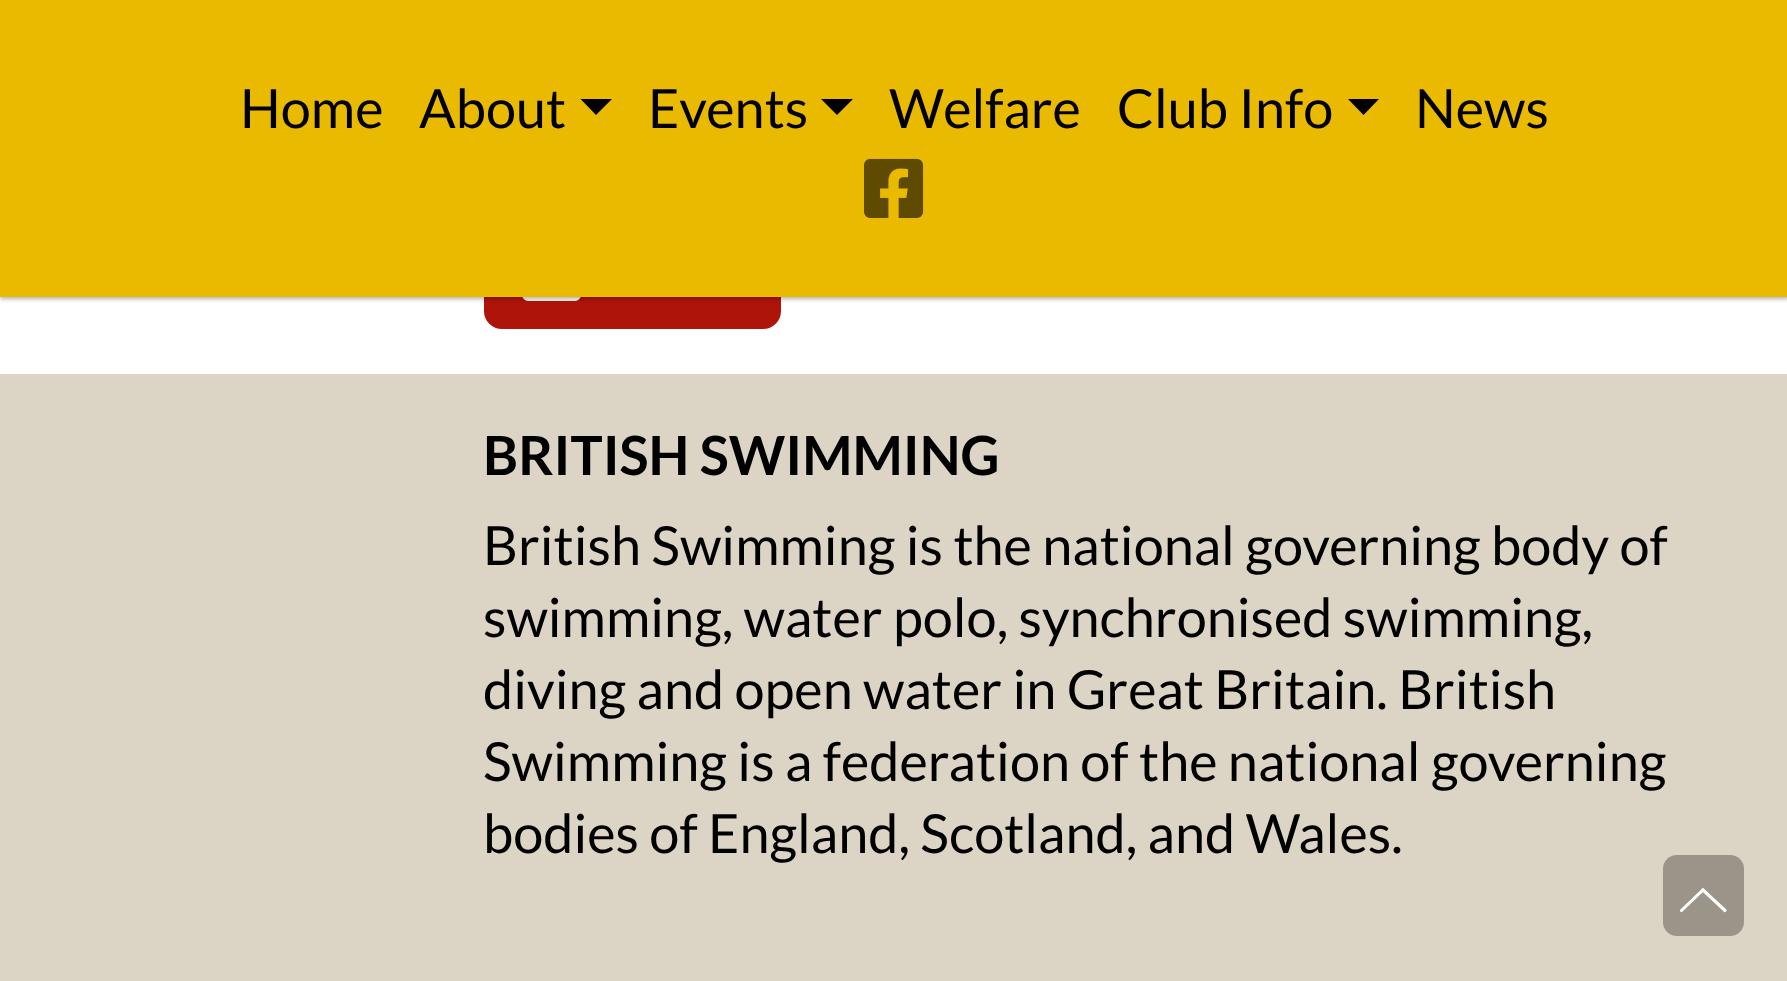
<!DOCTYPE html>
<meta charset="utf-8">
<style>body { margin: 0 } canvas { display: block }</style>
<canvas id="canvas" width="1787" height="981"></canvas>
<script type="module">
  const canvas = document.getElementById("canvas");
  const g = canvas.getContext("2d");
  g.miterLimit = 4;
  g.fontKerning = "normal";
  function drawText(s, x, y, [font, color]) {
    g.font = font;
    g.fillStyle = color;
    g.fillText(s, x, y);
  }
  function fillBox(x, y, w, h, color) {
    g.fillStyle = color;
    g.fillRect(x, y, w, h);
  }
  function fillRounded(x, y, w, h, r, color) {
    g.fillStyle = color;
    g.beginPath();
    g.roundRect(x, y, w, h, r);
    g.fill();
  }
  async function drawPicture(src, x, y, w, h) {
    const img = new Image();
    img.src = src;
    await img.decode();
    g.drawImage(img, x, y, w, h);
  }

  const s1 = ["54px Lato", "#000000"];
  const s2 = ["bold 54px Lato", "#000000"];

  fillBox(0, 0, 1787, 981, "#FFFFFF");
  fillRounded(484, 214, 297, 115, 18, "#AF140A");
  await drawPicture("pic2.png", 522, 297, 59, 4);
  g.fillStyle = "rgba(0, 0, 0, 0.3)";
  g.filter = "blur(2px)";
  g.beginPath();
  g.rect(0, 2, 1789, 297);
  g.fill();
  g.filter = "none";
  fillBox(0, 0, 1787, 297, "#EABA00");
  drawText("Home", 240, 128, s1);
  drawText("About", 419, 128, s1);
  g.beginPath();
  g.moveTo(580.5, 99);
  g.lineTo(612, 99);
  g.lineTo(596, 115);
  g.closePath();
  g.fill();
  drawText("Events", 648, 128, s1);
  g.beginPath();
  g.moveTo(821, 99);
  g.lineTo(853, 99);
  g.lineTo(837, 115);
  g.closePath();
  g.fill();
  drawText("Welfare", 889, 128, s1);
  drawText("Club Info", 1117, 128, s1);
  g.beginPath();
  g.moveTo(1348, 99);
  g.lineTo(1379, 99);
  g.lineTo(1363.5, 115);
  g.closePath();
  g.fill();
  drawText("News", 1415, 128, s1);
  await drawPicture("pic1.png", 864, 158, 60, 60);
  fillBox(0, 374, 1787, 607, "#DCD4C4");
  drawText("BRITISH SWIMMING", 483, 475, s2);
  drawText("British Swimming is the national governing body of", 483, 565, s1);
  drawText("swimming, water polo, synchronised swimming,", 483, 637, s1);
  drawText("diving and open water in Great Britain. British", 483, 709, s1);
  drawText("Swimming is a federation of the national governing", 483, 781, s1);
  drawText("bodies of England, Scotland, and Wales.", 483, 853, s1);
  fillRounded(1663, 855, 81, 81, 14, "#9A9489");
  g.beginPath();
  g.moveTo(1725, 910.5);
  g.lineTo(1703, 890);
  g.lineTo(1681.5, 910.5);
  g.strokeStyle = "#FFFFFF";
  g.lineWidth = 3.1;
  g.lineCap = "round";
  g.stroke();
</script>
